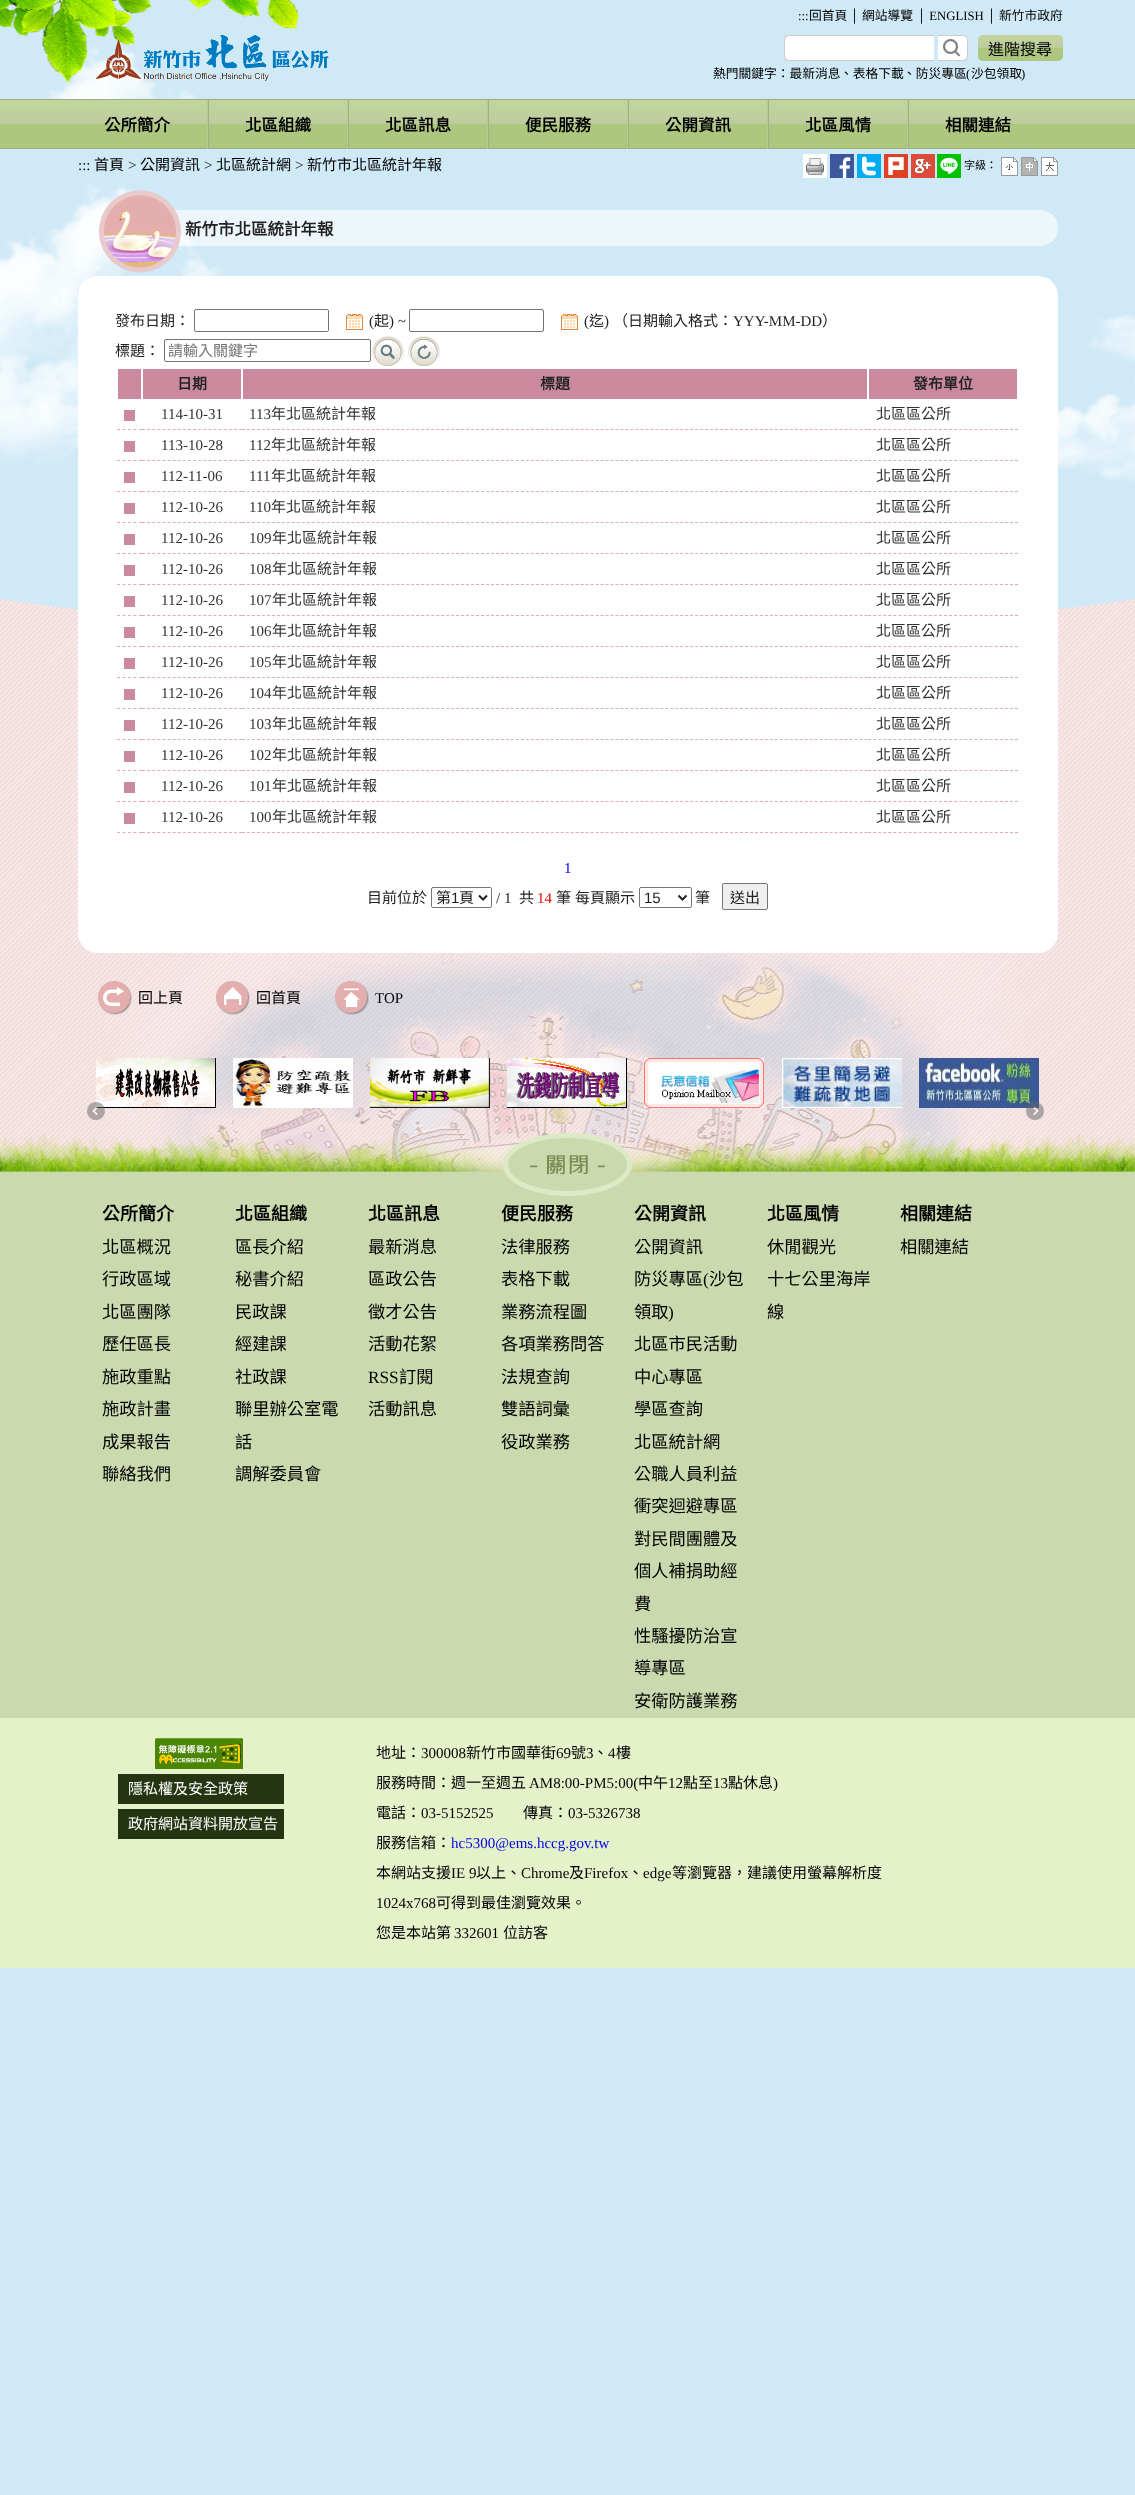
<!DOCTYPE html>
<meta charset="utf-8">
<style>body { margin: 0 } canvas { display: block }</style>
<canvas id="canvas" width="1135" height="2495"></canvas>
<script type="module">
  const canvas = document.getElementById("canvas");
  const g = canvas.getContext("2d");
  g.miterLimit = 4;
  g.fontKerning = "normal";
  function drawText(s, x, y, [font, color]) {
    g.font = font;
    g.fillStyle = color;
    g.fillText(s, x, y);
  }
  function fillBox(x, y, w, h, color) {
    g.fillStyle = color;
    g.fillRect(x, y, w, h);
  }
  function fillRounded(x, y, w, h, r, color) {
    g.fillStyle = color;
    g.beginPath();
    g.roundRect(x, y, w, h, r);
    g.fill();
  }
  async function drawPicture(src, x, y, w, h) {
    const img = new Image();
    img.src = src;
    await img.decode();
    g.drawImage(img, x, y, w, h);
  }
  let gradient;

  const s1 = ["12.75px Liberation Serif", "#000000"];
  const s2 = ["12.75px Noto Sans CJK TC", "#000000"];
  const s3 = ["16px Noto Sans CJK TC", "#000000"];
  const s4 = ["bold 16.5px Noto Sans CJK TC", "#000000"];
  const s5 = ["15px Liberation Serif", "#000000"];
  const s6 = ["15px Noto Sans CJK TC", "#000000"];
  const s7 = ["15px Liberation Serif", "#222222"];
  const s8 = ["11px Noto Sans CJK TC", "#000000"];
  const s9 = ["bold 16.5px Noto Sans CJK TC", "#222222"];
  const s10 = ["15px Noto Sans CJK TC", "#222222"];
  const s11 = ["15px Noto Sans CJK TC", "#757575"];
  const s12 = ["bold 15px Noto Sans CJK TC", "#222222"];
  const s13 = ["15px Liberation Serif", "#333333"];
  const s14 = ["15px Noto Sans CJK TC", "#333333"];
  const s15 = ["15px Liberation Serif", "#0000EE"];
  const s16 = ["15px Liberation Sans", "#222222"];
  const s17 = ["15px Liberation Serif", "#E90000"];
  const s18 = ["bold 18px Noto Sans CJK TC", "#000000"];
  const s19 = ["17.25px Noto Sans CJK TC", "#000000"];
  const s20 = ["17.25px Liberation Serif", "#000000"];
  const s21 = ["15px Noto Sans CJK TC", "#FFFFFF"];

  fillBox(0, 0, 1135, 2495, "#CFE9F6");
  await drawPicture("pic1.png", 0, 0, 300, 99);
  drawText(":::", 798, 20, s1);
  drawText("回首頁", 809, 20, s2);
  drawText("│", 850, 20, s1);
  drawText("網站導覽", 862, 20, s2);
  drawText("│ ENGLISH", 917, 20, s1);
  drawText("│", 987, 20, s1);
  drawText("新竹市政府", 999, 20, s2);
  g.fillStyle = "#FFFFFF";
  g.beginPath();
  g.roundRect(784, 35, 150, 26, [5, 0, 0, 5]);
  g.fill();
  g.fillStyle = "#CCCCCC";
  g.beginPath();
  g.moveTo(789, 35);
  g.lineTo(934, 35);
  g.lineTo(934, 61);
  g.lineTo(789, 61);
  g.bezierCurveTo(786, 61, 784, 59, 784, 56);
  g.lineTo(784, 40);
  g.bezierCurveTo(784, 37, 786, 35, 789, 35);
  g.closePath();
  g.moveTo(789, 36);
  g.lineTo(934, 36);
  g.lineTo(934, 60);
  g.lineTo(789, 60);
  g.bezierCurveTo(787, 60, 785, 58, 785, 56);
  g.lineTo(785, 40);
  g.bezierCurveTo(785, 38, 787, 36, 789, 36);
  g.closePath();
  g.fill("evenodd");
  g.fillStyle = "#FFFFFF";
  g.beginPath();
  g.roundRect(938, 35, 30, 26, [0, 5, 5, 0]);
  g.fill();
  await drawPicture("pic2.png", 943, 39, 18, 18);
  g.fillStyle = "#CCCCCC";
  g.beginPath();
  g.moveTo(938, 35);
  g.lineTo(963, 35);
  g.bezierCurveTo(966, 35, 968, 37, 968, 40);
  g.lineTo(968, 56);
  g.bezierCurveTo(968, 59, 966, 61, 963, 61);
  g.lineTo(938, 61);
  g.closePath();
  g.moveTo(938, 36);
  g.lineTo(963, 36);
  g.bezierCurveTo(965, 36, 967, 38, 967, 40);
  g.lineTo(967, 56);
  g.bezierCurveTo(967, 58, 965, 60, 963, 60);
  g.lineTo(938, 60);
  g.closePath();
  g.fill("evenodd");
  gradient = g.createLinearGradient(1021, 35, 1021, 61);
  gradient.addColorStop(0, "#C2D69B");
  gradient.addColorStop(0.5, "#BDCC9F");
  gradient.addColorStop(0.51, "#ADC77F");
  gradient.addColorStop(1, "#ADC77F");
  g.fillStyle = gradient;
  g.beginPath();
  g.roundRect(978, 35, 85, 26, 5);
  g.fill();
  drawText("進階搜尋", 988, 55, s3);
  drawText("熱門關鍵字：最新消息", 713, 78, s2);
  drawText("、表格下載", 840, 78, s2);
  drawText("、防災專區", 903, 78, s2);
  drawText("(", 966, 78, s1);
  drawText("沙包領取", 971, 78, s2);
  drawText(")", 1021, 78, s1);
  gradient = g.createLinearGradient(568, 100, 568, 148);
  gradient.addColorStop(0, "#C2D69B");
  gradient.addColorStop(0.5, "#BDCC9F");
  gradient.addColorStop(0.51, "#ADC77F");
  gradient.addColorStop(1, "#ADC77F");
  g.fillStyle = gradient;
  g.fillRect(0, 100, 1135, 48);
  fillBox(0, 148, 1135, 1, "#9FAE82");
  fillBox(207, 100, 1, 49, "#B8CA94");
  drawText("公所簡介", 104, 131, s4);
  fillBox(347, 100, 1, 49, "#B8CA94");
  fillBox(208, 100, 1, 49, "#A0AF84");
  drawText("北區組織", 245, 131, s4);
  fillBox(487, 100, 1, 49, "#B8CA94");
  fillBox(348, 100, 1, 49, "#A0AF84");
  drawText("北區訊息", 385, 131, s4);
  fillBox(627, 100, 1, 49, "#B8CA94");
  fillBox(488, 100, 1, 49, "#A0AF84");
  drawText("便民服務", 525, 131, s4);
  fillBox(767, 100, 1, 49, "#B8CA94");
  fillBox(628, 100, 1, 49, "#A0AF84");
  drawText("公開資訊", 665, 131, s4);
  fillBox(907, 100, 1, 49, "#B8CA94");
  fillBox(768, 100, 1, 49, "#A0AF84");
  drawText("北區風情", 805, 131, s4);
  fillBox(908, 100, 1, 49, "#A0AF84");
  drawText("相關連結", 945, 131, s4);
  await drawPicture("pic3.png", 96, 35, 233, 46);
  fillBox(0, 99, 1135, 1, "#9FAE82");
  await drawPicture("pic4.png", 0, 183, 1135, 950);
  drawText(":::", 78, 170, s5);
  drawText("首頁", 94, 170, s6);
  drawText(">", 128, 170, s7);
  drawText("公開資訊", 140, 170, s6);
  drawText(">", 204, 170, s7);
  drawText("北區統計網", 216, 170, s6);
  drawText(">", 295, 170, s7);
  drawText("新竹市北區統計年報", 307, 170, s6);
  await drawPicture("pic5.png", 803, 154, 24, 24);
  await drawPicture("pic6.png", 830, 154, 24, 24);
  await drawPicture("pic7.png", 857, 154, 24, 24);
  await drawPicture("pic8.png", 884, 154, 24, 24);
  await drawPicture("pic9.png", 911, 154, 24, 24);
  await drawPicture("pic10.png", 937, 154, 24, 24);
  drawText("字級：", 964, 169, s8);
  await drawPicture("pic11.png", 1001, 157, 17, 19);
  await drawPicture("pic12.png", 1021, 157, 17, 19);
  await drawPicture("pic13.png", 1041, 157, 17, 19);
  fillRounded(78, 210, 980, 36, 18, "rgba(255, 255, 255, 0.6)");
  await drawPicture("pic14.png", 98, 190, 83, 83);
  drawText("新竹市北區統計年報", 185, 235, s9);
  fillRounded(78, 276, 980, 677, 20, "#FFFFFF");
  drawText("發布日期：", 115, 326, s10);
  g.beginPath();
  g.roundRect(194.5, 309.5, 134, 22, 1.5);
  g.strokeStyle = "#767676";
  g.stroke();
  await drawPicture("pic15.png", 346, 314, 17, 16);
  drawText("(", 369, 326, s7);
  drawText("起", 374, 326, s10);
  drawText(") ~", 389, 326, s7);
  g.beginPath();
  g.roundRect(409.5, 309.5, 134, 22, 1.5);
  g.stroke();
  await drawPicture("pic15.png", 561, 314, 17, 16);
  drawText("(", 584, 326, s7);
  drawText("迄", 589, 326, s10);
  drawText(")", 604, 326, s7);
  drawText("（日期輸入格式：", 613, 326, s10);
  drawText("YYY-MM-DD", 733, 326, s7);
  drawText("）", 822, 326, s10);
  drawText("標題：", 115, 356, s10);
  g.beginPath();
  g.roundRect(164.5, 339.5, 206, 22, 1.5);
  g.stroke();
  drawText("請輸入關鍵字", 168, 356, s11);
  await drawPicture("pic16.png", 371, 336, 33, 30);
  await drawPicture("pic17.png", 408, 336, 33, 30);
  fillBox(118, 369, 899, 30, "#CB899D");
  fillBox(141, 369, 2, 30, "#FFFFFF");
  fillBox(241, 369, 1, 30, "#FFFFFF");
  drawText("日期", 177, 389, s12);
  fillBox(867, 369, 1, 30, "#FFFFFF");
  fillBox(242, 369, 1, 30, "#FFFFFF");
  drawText("標題", 540, 389, s12);
  fillBox(868, 369, 1, 30, "#FFFFFF");
  drawText("發布單位", 913, 389, s12);
  g.beginPath();
  g.moveTo(117, 429.5);
  g.lineTo(142, 429.5);
  g.strokeStyle = "#E4ACAC";
  g.setLineDash([3, 2.5]);
  g.stroke();
  fillBox(124, 410, 11, 11, "#CB899D");
  g.beginPath();
  g.moveTo(142, 429.5);
  g.lineTo(242, 429.5);
  g.setLineDash([3, 2.11]);
  g.stroke();
  drawText("114-10-31", 161, 419, s13);
  g.beginPath();
  g.moveTo(242, 429.5);
  g.lineTo(868, 429.5);
  g.setLineDash([3, 1.98]);
  g.stroke();
  drawText("113", 249, 419, s13);
  drawText("年北區統計年報", 271, 419, s14);
  g.beginPath();
  g.moveTo(868, 429.5);
  g.lineTo(1018, 429.5);
  g.setLineDash([3, 2.07]);
  g.stroke();
  drawText("北區區公所", 876, 419, s14);
  g.beginPath();
  g.moveTo(117, 460.5);
  g.lineTo(142, 460.5);
  g.setLineDash([3, 2.5]);
  g.stroke();
  fillBox(124, 441, 11, 11, "#CB899D");
  g.beginPath();
  g.moveTo(142, 460.5);
  g.lineTo(242, 460.5);
  g.setLineDash([3, 2.11]);
  g.stroke();
  drawText("113-10-28", 161, 450, s13);
  g.beginPath();
  g.moveTo(242, 460.5);
  g.lineTo(868, 460.5);
  g.setLineDash([3, 1.98]);
  g.stroke();
  drawText("112", 249, 450, s13);
  drawText("年北區統計年報", 271, 450, s14);
  g.beginPath();
  g.moveTo(868, 460.5);
  g.lineTo(1018, 460.5);
  g.setLineDash([3, 2.07]);
  g.stroke();
  drawText("北區區公所", 876, 450, s14);
  g.beginPath();
  g.moveTo(117, 491.5);
  g.lineTo(142, 491.5);
  g.setLineDash([3, 2.5]);
  g.stroke();
  fillBox(124, 472, 11, 11, "#CB899D");
  g.beginPath();
  g.moveTo(142, 491.5);
  g.lineTo(242, 491.5);
  g.setLineDash([3, 2.11]);
  g.stroke();
  drawText("112-11-06", 161, 481, s13);
  g.beginPath();
  g.moveTo(242, 491.5);
  g.lineTo(868, 491.5);
  g.setLineDash([3, 1.98]);
  g.stroke();
  drawText("111", 249, 481, s13);
  drawText("年北區統計年報", 271, 481, s14);
  g.beginPath();
  g.moveTo(868, 491.5);
  g.lineTo(1018, 491.5);
  g.setLineDash([3, 2.07]);
  g.stroke();
  drawText("北區區公所", 876, 481, s14);
  g.beginPath();
  g.moveTo(117, 522.5);
  g.lineTo(142, 522.5);
  g.setLineDash([3, 2.5]);
  g.stroke();
  fillBox(124, 503, 11, 11, "#CB899D");
  g.beginPath();
  g.moveTo(142, 522.5);
  g.lineTo(242, 522.5);
  g.setLineDash([3, 2.11]);
  g.stroke();
  drawText("112-10-26", 161, 512, s13);
  g.beginPath();
  g.moveTo(242, 522.5);
  g.lineTo(868, 522.5);
  g.setLineDash([3, 1.98]);
  g.stroke();
  drawText("110", 249, 512, s13);
  drawText("年北區統計年報", 271, 512, s14);
  g.beginPath();
  g.moveTo(868, 522.5);
  g.lineTo(1018, 522.5);
  g.setLineDash([3, 2.07]);
  g.stroke();
  drawText("北區區公所", 876, 512, s14);
  g.beginPath();
  g.moveTo(117, 553.5);
  g.lineTo(142, 553.5);
  g.setLineDash([3, 2.5]);
  g.stroke();
  fillBox(124, 534, 11, 11, "#CB899D");
  g.beginPath();
  g.moveTo(142, 553.5);
  g.lineTo(242, 553.5);
  g.setLineDash([3, 2.11]);
  g.stroke();
  drawText("112-10-26", 161, 543, s13);
  g.beginPath();
  g.moveTo(242, 553.5);
  g.lineTo(868, 553.5);
  g.setLineDash([3, 1.98]);
  g.stroke();
  drawText("109", 249, 543, s13);
  drawText("年北區統計年報", 272, 543, s14);
  g.beginPath();
  g.moveTo(868, 553.5);
  g.lineTo(1018, 553.5);
  g.setLineDash([3, 2.07]);
  g.stroke();
  drawText("北區區公所", 876, 543, s14);
  g.beginPath();
  g.moveTo(117, 584.5);
  g.lineTo(142, 584.5);
  g.setLineDash([3, 2.5]);
  g.stroke();
  fillBox(124, 565, 11, 11, "#CB899D");
  g.beginPath();
  g.moveTo(142, 584.5);
  g.lineTo(242, 584.5);
  g.setLineDash([3, 2.11]);
  g.stroke();
  drawText("112-10-26", 161, 574, s13);
  g.beginPath();
  g.moveTo(242, 584.5);
  g.lineTo(868, 584.5);
  g.setLineDash([3, 1.98]);
  g.stroke();
  drawText("108", 249, 574, s13);
  drawText("年北區統計年報", 272, 574, s14);
  g.beginPath();
  g.moveTo(868, 584.5);
  g.lineTo(1018, 584.5);
  g.setLineDash([3, 2.07]);
  g.stroke();
  drawText("北區區公所", 876, 574, s14);
  g.beginPath();
  g.moveTo(117, 615.5);
  g.lineTo(142, 615.5);
  g.setLineDash([3, 2.5]);
  g.stroke();
  fillBox(124, 596, 11, 11, "#CB899D");
  g.beginPath();
  g.moveTo(142, 615.5);
  g.lineTo(242, 615.5);
  g.setLineDash([3, 2.11]);
  g.stroke();
  drawText("112-10-26", 161, 605, s13);
  g.beginPath();
  g.moveTo(242, 615.5);
  g.lineTo(868, 615.5);
  g.setLineDash([3, 1.98]);
  g.stroke();
  drawText("107", 249, 605, s13);
  drawText("年北區統計年報", 272, 605, s14);
  g.beginPath();
  g.moveTo(868, 615.5);
  g.lineTo(1018, 615.5);
  g.setLineDash([3, 2.07]);
  g.stroke();
  drawText("北區區公所", 876, 605, s14);
  g.beginPath();
  g.moveTo(117, 646.5);
  g.lineTo(142, 646.5);
  g.setLineDash([3, 2.5]);
  g.stroke();
  fillBox(124, 627, 11, 11, "#CB899D");
  g.beginPath();
  g.moveTo(142, 646.5);
  g.lineTo(242, 646.5);
  g.setLineDash([3, 2.11]);
  g.stroke();
  drawText("112-10-26", 161, 636, s13);
  g.beginPath();
  g.moveTo(242, 646.5);
  g.lineTo(868, 646.5);
  g.setLineDash([3, 1.98]);
  g.stroke();
  drawText("106", 249, 636, s13);
  drawText("年北區統計年報", 272, 636, s14);
  g.beginPath();
  g.moveTo(868, 646.5);
  g.lineTo(1018, 646.5);
  g.setLineDash([3, 2.07]);
  g.stroke();
  drawText("北區區公所", 876, 636, s14);
  g.beginPath();
  g.moveTo(117, 677.5);
  g.lineTo(142, 677.5);
  g.setLineDash([3, 2.5]);
  g.stroke();
  fillBox(124, 658, 11, 11, "#CB899D");
  g.beginPath();
  g.moveTo(142, 677.5);
  g.lineTo(242, 677.5);
  g.setLineDash([3, 2.11]);
  g.stroke();
  drawText("112-10-26", 161, 667, s13);
  g.beginPath();
  g.moveTo(242, 677.5);
  g.lineTo(868, 677.5);
  g.setLineDash([3, 1.98]);
  g.stroke();
  drawText("105", 249, 667, s13);
  drawText("年北區統計年報", 272, 667, s14);
  g.beginPath();
  g.moveTo(868, 677.5);
  g.lineTo(1018, 677.5);
  g.setLineDash([3, 2.07]);
  g.stroke();
  drawText("北區區公所", 876, 667, s14);
  g.beginPath();
  g.moveTo(117, 708.5);
  g.lineTo(142, 708.5);
  g.setLineDash([3, 2.5]);
  g.stroke();
  fillBox(124, 689, 11, 11, "#CB899D");
  g.beginPath();
  g.moveTo(142, 708.5);
  g.lineTo(242, 708.5);
  g.setLineDash([3, 2.11]);
  g.stroke();
  drawText("112-10-26", 161, 698, s13);
  g.beginPath();
  g.moveTo(242, 708.5);
  g.lineTo(868, 708.5);
  g.setLineDash([3, 1.98]);
  g.stroke();
  drawText("104", 249, 698, s13);
  drawText("年北區統計年報", 272, 698, s14);
  g.beginPath();
  g.moveTo(868, 708.5);
  g.lineTo(1018, 708.5);
  g.setLineDash([3, 2.07]);
  g.stroke();
  drawText("北區區公所", 876, 698, s14);
  g.beginPath();
  g.moveTo(117, 739.5);
  g.lineTo(142, 739.5);
  g.setLineDash([3, 2.5]);
  g.stroke();
  fillBox(124, 720, 11, 11, "#CB899D");
  g.beginPath();
  g.moveTo(142, 739.5);
  g.lineTo(242, 739.5);
  g.setLineDash([3, 2.11]);
  g.stroke();
  drawText("112-10-26", 161, 729, s13);
  g.beginPath();
  g.moveTo(242, 739.5);
  g.lineTo(868, 739.5);
  g.setLineDash([3, 1.98]);
  g.stroke();
  drawText("103", 249, 729, s13);
  drawText("年北區統計年報", 272, 729, s14);
  g.beginPath();
  g.moveTo(868, 739.5);
  g.lineTo(1018, 739.5);
  g.setLineDash([3, 2.07]);
  g.stroke();
  drawText("北區區公所", 876, 729, s14);
  g.beginPath();
  g.moveTo(117, 770.5);
  g.lineTo(142, 770.5);
  g.setLineDash([3, 2.5]);
  g.stroke();
  fillBox(124, 751, 11, 11, "#CB899D");
  g.beginPath();
  g.moveTo(142, 770.5);
  g.lineTo(242, 770.5);
  g.setLineDash([3, 2.11]);
  g.stroke();
  drawText("112-10-26", 161, 760, s13);
  g.beginPath();
  g.moveTo(242, 770.5);
  g.lineTo(868, 770.5);
  g.setLineDash([3, 1.98]);
  g.stroke();
  drawText("102", 249, 760, s13);
  drawText("年北區統計年報", 272, 760, s14);
  g.beginPath();
  g.moveTo(868, 770.5);
  g.lineTo(1018, 770.5);
  g.setLineDash([3, 2.07]);
  g.stroke();
  drawText("北區區公所", 876, 760, s14);
  g.beginPath();
  g.moveTo(117, 801.5);
  g.lineTo(142, 801.5);
  g.setLineDash([3, 2.5]);
  g.stroke();
  fillBox(124, 782, 11, 11, "#CB899D");
  g.beginPath();
  g.moveTo(142, 801.5);
  g.lineTo(242, 801.5);
  g.setLineDash([3, 2.11]);
  g.stroke();
  drawText("112-10-26", 161, 791, s13);
  g.beginPath();
  g.moveTo(242, 801.5);
  g.lineTo(868, 801.5);
  g.setLineDash([3, 1.98]);
  g.stroke();
  drawText("101", 249, 791, s13);
  drawText("年北區統計年報", 272, 791, s14);
  g.beginPath();
  g.moveTo(868, 801.5);
  g.lineTo(1018, 801.5);
  g.setLineDash([3, 2.07]);
  g.stroke();
  drawText("北區區公所", 876, 791, s14);
  g.beginPath();
  g.moveTo(117, 832.5);
  g.lineTo(142, 832.5);
  g.setLineDash([3, 2.5]);
  g.stroke();
  fillBox(124, 813, 11, 11, "#CB899D");
  g.beginPath();
  g.moveTo(142, 832.5);
  g.lineTo(242, 832.5);
  g.setLineDash([3, 2.11]);
  g.stroke();
  drawText("112-10-26", 161, 822, s13);
  g.beginPath();
  g.moveTo(242, 832.5);
  g.lineTo(868, 832.5);
  g.setLineDash([3, 1.98]);
  g.stroke();
  drawText("100", 249, 822, s13);
  drawText("年北區統計年報", 272, 822, s14);
  g.beginPath();
  g.moveTo(868, 832.5);
  g.lineTo(1018, 832.5);
  g.setLineDash([3, 2.07]);
  g.stroke();
  drawText("北區區公所", 876, 822, s14);
  drawText("1", 564, 873, s15);
  drawText("目前位於", 367, 903, s10);
  g.beginPath();
  g.roundRect(431.5, 887.5, 60, 20, 1.5);
  g.strokeStyle = "#767676";
  g.setLineDash([]);
  g.stroke();
  g.beginPath();
  g.moveTo(479, 895.5);
  g.lineTo(483, 899.5);
  g.lineTo(487, 895.5);
  g.strokeStyle = "#222222";
  g.lineWidth = 2;
  g.stroke();
  drawText("第", 436, 903, s10);
  drawText("1", 451, 903, s16);
  drawText("頁", 459, 903, s10);
  drawText("/ 1", 496, 903, s7);
  drawText("共", 519, 903, s10);
  drawText("14", 537, 903, s17);
  drawText("筆", 556, 903, s10);
  drawText("每頁顯示", 575, 903, s10);
  g.beginPath();
  g.roundRect(639.5, 887.5, 52, 20, 1.5);
  g.strokeStyle = "#767676";
  g.lineWidth = 1;
  g.stroke();
  g.beginPath();
  g.moveTo(678.5, 895.5);
  g.lineTo(682.5, 899.5);
  g.lineTo(686.5, 895.5);
  g.strokeStyle = "#222222";
  g.lineWidth = 2;
  g.stroke();
  drawText("15", 644, 903, s16);
  drawText("筆", 695, 903, s10);
  g.fillStyle = "#EFEFEF";
  g.beginPath();
  g.roundRect(722.5, 883.5, 45, 26, 1.5);
  g.fill();
  g.strokeStyle = "#767676";
  g.lineWidth = 1;
  g.stroke();
  drawText("送出", 730, 903, s10);
  await drawPicture("pic18.png", 98, 981, 34, 34);
  drawText("回上頁", 138, 1003, s6);
  await drawPicture("pic19.png", 216, 981, 34, 34);
  drawText("回首頁", 256, 1003, s6);
  await drawPicture("pic20.png", 335, 981, 34, 34);
  drawText("TOP", 375, 1003, s5);
  await drawPicture("pic21.png", 96, 1058, 120, 50);
  await drawPicture("pic22.png", 233, 1058, 120, 50);
  await drawPicture("pic23.png", 370, 1058, 120, 50);
  await drawPicture("pic24.png", 507, 1058, 120, 50);
  await drawPicture("pic25.png", 644, 1058, 120, 50);
  await drawPicture("pic26.png", 782, 1058, 120, 50);
  await drawPicture("pic27.png", 919, 1058, 120, 50);
  await drawPicture("pic28.png", 87, 1102, 18, 18);
  await drawPicture("pic29.png", 1026, 1102, 18, 18);
  await drawPicture("pic30.png", 0, 1133, 1135, 63);
  await drawPicture("pic31.png", 503, 1133, 129, 63);
  fillBox(0, 1196, 1135, 522, "#CBD9AE");
  drawText("公所簡介", 102, 1220, s18);
  drawText("北區概況", 102, 1253, s19);
  drawText("行政區域", 102, 1285, s19);
  drawText("北區團隊", 102, 1318, s19);
  drawText("歷任區長", 102, 1350, s19);
  drawText("施政重點", 102, 1383, s19);
  drawText("施政計畫", 102, 1415, s19);
  drawText("成果報告", 102, 1448, s19);
  drawText("聯絡我們", 102, 1480, s19);
  drawText("北區組織", 235, 1220, s18);
  drawText("區長介紹", 235, 1253, s19);
  drawText("秘書介紹", 235, 1285, s19);
  drawText("民政課", 235, 1318, s19);
  drawText("經建課", 235, 1350, s19);
  drawText("社政課", 235, 1383, s19);
  drawText("聯里辦公室電", 235, 1415, s19);
  drawText("話", 235, 1448, s19);
  drawText("調解委員會", 235, 1480, s19);
  drawText("北區訊息", 368, 1220, s18);
  drawText("最新消息", 368, 1253, s19);
  drawText("區政公告", 368, 1285, s19);
  drawText("徵才公告", 368, 1318, s19);
  drawText("活動花絮", 368, 1350, s19);
  drawText("RSS", 368, 1383, s20);
  drawText("訂閱", 399, 1383, s19);
  drawText("活動訊息", 368, 1415, s19);
  drawText("便民服務", 501, 1220, s18);
  drawText("法律服務", 501, 1253, s19);
  drawText("表格下載", 501, 1285, s19);
  drawText("業務流程圖", 501, 1318, s19);
  drawText("各項業務問答", 501, 1350, s19);
  drawText("法規查詢", 501, 1383, s19);
  drawText("雙語詞彙", 501, 1415, s19);
  drawText("役政業務", 501, 1448, s19);
  drawText("公開資訊", 634, 1220, s18);
  drawText("公開資訊", 634, 1253, s19);
  drawText("防災專區", 634, 1285, s19);
  drawText("(", 703, 1285, s20);
  drawText("沙包", 709, 1285, s19);
  drawText("領取", 634, 1318, s19);
  drawText(")", 668, 1318, s20);
  drawText("北區市民活動", 634, 1350, s19);
  drawText("中心專區", 634, 1383, s19);
  drawText("學區查詢", 634, 1415, s19);
  drawText("北區統計網", 634, 1448, s19);
  drawText("公職人員利益", 634, 1480, s19);
  drawText("衝突迴避專區", 634, 1512, s19);
  drawText("對民間團體及", 634, 1545, s19);
  drawText("個人補捐助經", 634, 1577, s19);
  drawText("費", 634, 1610, s19);
  drawText("性騷擾防治宣", 634, 1642, s19);
  drawText("導專區", 634, 1674, s19);
  drawText("安衛防護業務", 634, 1707, s19);
  drawText("北區風情", 767, 1220, s18);
  drawText("休閒觀光", 767, 1253, s19);
  drawText("十七公里海岸", 767, 1285, s19);
  drawText("線", 767, 1318, s19);
  drawText("相關連結", 900, 1220, s18);
  drawText("相關連結", 900, 1253, s19);
  fillBox(0, 1718, 1135, 250, "#E4F1C9");
  await drawPicture("pic32.png", 155, 1738, 88, 31);
  fillBox(118, 1774, 166, 30, "#253512");
  drawText("隱私權及安全政策", 128, 1794, s21);
  fillBox(118, 1809, 166, 30, "#253512");
  drawText("政府網站資料開放宣告", 128, 1829, s21);
  drawText("地址：", 376, 1758, s6);
  drawText("300008", 421, 1758, s5);
  drawText("新竹市國華街", 466, 1758, s6);
  drawText("69", 556, 1758, s5);
  drawText("號", 571, 1758, s6);
  drawText("3", 586, 1758, s5);
  drawText("、", 593, 1758, s6);
  drawText("4", 608, 1758, s5);
  drawText("樓", 616, 1758, s6);
  drawText("服務時間：週一至週五", 376, 1788, s6);
  drawText("AM8:00-PM5:00(", 529, 1788, s5);
  drawText("中午", 638, 1788, s6);
  drawText("12", 668, 1788, s5);
  drawText("點至", 683, 1788, s6);
  drawText("13", 713, 1788, s5);
  drawText("點休息", 728, 1788, s6);
  drawText(")", 773, 1788, s5);
  drawText("電話：", 376, 1818, s6);
  drawText("03-5152525", 421, 1818, s5);
  drawText("傳真：", 523, 1818, s6);
  drawText("03-5326738", 568, 1818, s5);
  drawText("服務信箱：", 376, 1848, s6);
  drawText("hc5300@ems.hccg.gov.tw", 451, 1848, s15);
  drawText("本網站支援", 376, 1878, s6);
  drawText("IE 9", 451, 1878, s5);
  drawText("以上、", 476, 1878, s6);
  drawText("Chrome", 521, 1878, s5);
  drawText("及", 569, 1878, s6);
  drawText("Firefox", 584, 1878, s5);
  drawText("、", 628, 1878, s6);
  drawText("edge", 643, 1878, s5);
  drawText("等瀏覽器，建議使用螢幕解析度", 672, 1878, s6);
  drawText("1024x768", 376, 1908, s5);
  drawText("可得到最佳瀏覽效果。", 436, 1908, s6);
  drawText("您是本站第", 376, 1938, s6);
  drawText("332601", 454, 1938, s5);
  drawText("位訪客", 503, 1938, s6);
</script>
